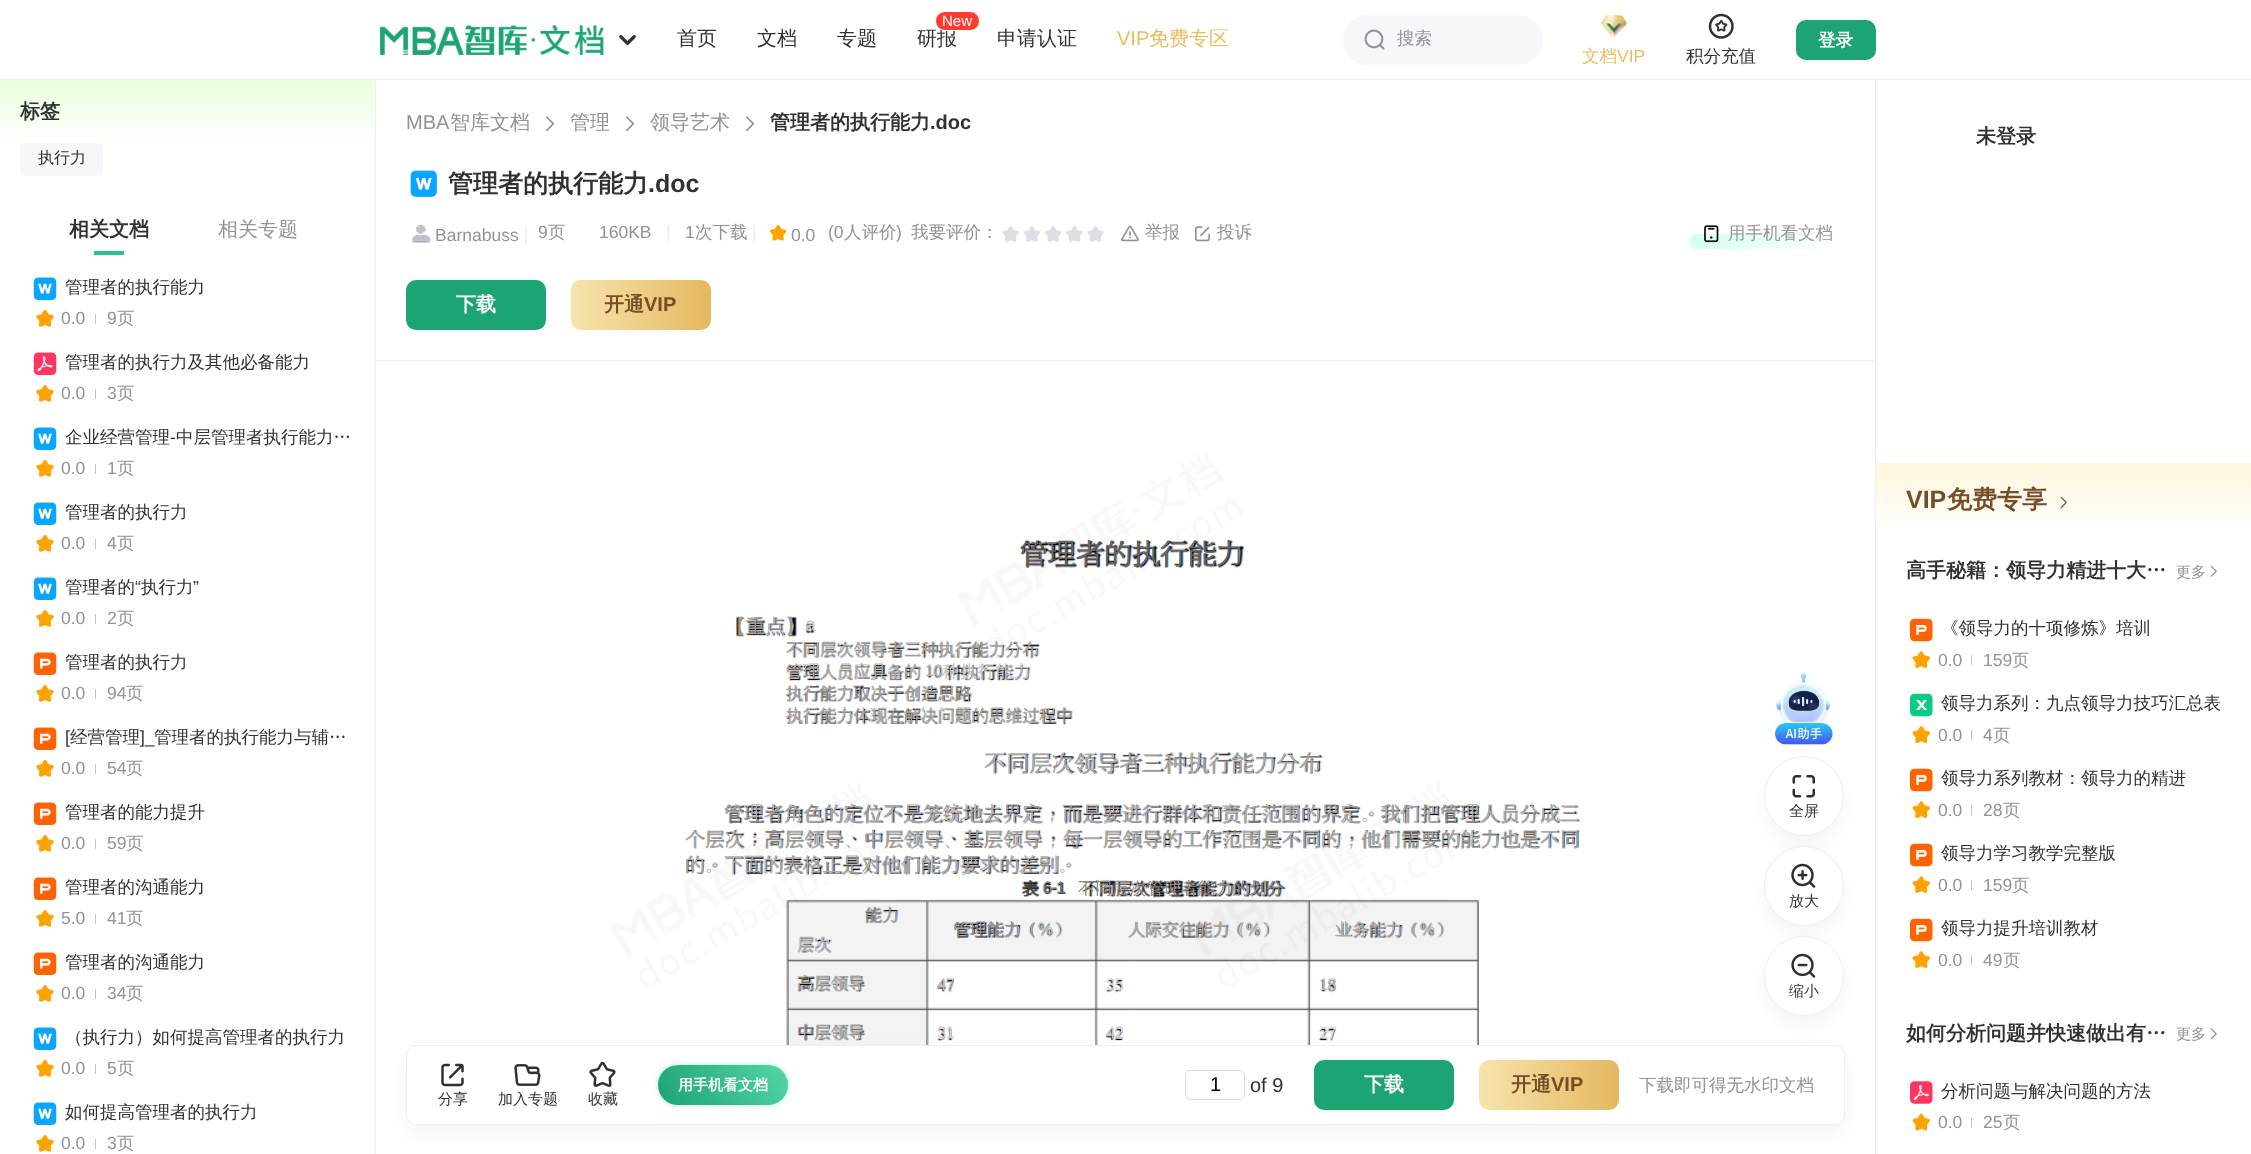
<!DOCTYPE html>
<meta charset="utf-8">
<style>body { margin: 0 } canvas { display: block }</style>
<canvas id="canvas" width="2251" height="1154"></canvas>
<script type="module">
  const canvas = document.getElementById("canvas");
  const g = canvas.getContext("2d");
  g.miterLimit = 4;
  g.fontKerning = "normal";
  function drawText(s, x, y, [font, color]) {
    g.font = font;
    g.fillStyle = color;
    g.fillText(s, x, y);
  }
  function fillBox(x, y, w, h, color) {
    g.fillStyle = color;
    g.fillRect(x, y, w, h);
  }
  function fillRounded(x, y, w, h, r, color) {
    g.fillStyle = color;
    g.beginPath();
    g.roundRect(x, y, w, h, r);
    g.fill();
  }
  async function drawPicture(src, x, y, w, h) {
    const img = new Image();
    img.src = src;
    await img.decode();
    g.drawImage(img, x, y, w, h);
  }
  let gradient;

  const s1 = ["500 20px WenQuanYi Zen Hei", "#303133"];
  const s2 = ["15px Liberation Sans", "#FFFFFF"];
  const s3 = ["20px Liberation Sans", "#EABC5C"];
  const s4 = ["500 20px WenQuanYi Zen Hei", "#EABC5C"];
  const s5 = ["500 17.5px WenQuanYi Zen Hei", "#909399"];
  const s6 = ["bold 17.5px WenQuanYi Zen Hei", "#FFFFFF"];
  const s7 = ["500 17.5px WenQuanYi Zen Hei", "#EABC5C"];
  const s8 = ["17.5px Liberation Sans", "#EABC5C"];
  const s9 = ["500 17.5px WenQuanYi Zen Hei", "#303133"];
  const s10 = ["bold 20px WenQuanYi Zen Hei", "#303133"];
  const s11 = ["500 16px WenQuanYi Zen Hei", "#303133"];
  const s12 = ["500 20px WenQuanYi Zen Hei", "#909399"];
  const s13 = ["17.5px Liberation Sans", "#909399"];
  const s14 = ["17.5px Liberation Sans", "#303133"];
  const s15 = ["20px Liberation Sans", "#909399"];
  const s16 = ["bold 20px Liberation Sans", "#303133"];
  const s17 = ["bold 25px WenQuanYi Zen Hei", "#303133"];
  const s18 = ["bold 25px Liberation Sans", "#303133"];
  const s19 = ["17.5px Liberation Sans", "#ECECED"];
  const s20 = ["500 17.5px WenQuanYi Zen Hei", "#969796"];
  const s21 = ["bold 20px WenQuanYi Zen Hei", "#FFFFFF"];
  const s22 = ["bold 20px WenQuanYi Zen Hei", "#754E27"];
  const s23 = ["bold 20px Liberation Sans", "#754E27"];
  const s24 = ["500 28px WenQuanYi Zen Hei", "#6C6460"];
  const s25 = ["500 19.65px WenQuanYi Zen Hei", "#9D9A99"];
  const s26 = ["19.65px Liberation Sans", "#C2C6C9"];
  const s27 = ["500 16.9px WenQuanYi Zen Hei", "#AEA7A4"];
  const s28 = ["500 16.9px WenQuanYi Zen Hei", "#B0ACAA"];
  const s29 = ["16.9px Liberation Sans", "#B3B1B3"];
  const s30 = ["500 16.9px WenQuanYi Zen Hei", "#C2C1BF"];
  const s31 = ["500 16.9px WenQuanYi Zen Hei", "#A7A09C"];
  const s32 = ["500 22.5px WenQuanYi Zen Hei", "#AEA7A4"];
  const s33 = ["500 19.65px WenQuanYi Zen Hei", "#AEA7A4"];
  const s34 = ["500 16.9px WenQuanYi Zen Hei", "#564E4A"];
  const s35 = ["16.9px Liberation Sans", "#7F7A7A"];
  const s36 = ["500 16.9px WenQuanYi Zen Hei", "#8F8B87"];
  const s37 = ["500 16.9px WenQuanYi Zen Hei", "#958F8B"];
  const s38 = ["16.9px Liberation Sans", "#BAB5B4"];
  const s39 = ["500 16.9px WenQuanYi Zen Hei", "#BAB5B4"];
  const s40 = ["16.9px Liberation Sans", "#D0D3D6"];
  const s41 = ["16.9px Liberation Sans", "#BBBCBF"];
  const s42 = ["16.9px Liberation Sans", "#CECDCF"];
  const s43 = ["16.9px Liberation Sans", "#CBC9C9"];
  const s44 = ["16.9px Liberation Sans", "#DFDCD9"];
  const s45 = ["bold 25px Liberation Sans", "#754E27"];
  const s46 = ["bold 25px WenQuanYi Zen Hei", "#754E27"];
  const s47 = ["500 15px WenQuanYi Zen Hei", "#909399"];
  const s48 = ["500 15px WenQuanYi Zen Hei", "#303133"];
  const s49 = ["bold 15px WenQuanYi Zen Hei", "#FFFFFF"];
  const s50 = ["20px Liberation Sans", "#000000"];
  const s51 = ["20px Liberation Sans", "#303133"];

  fillBox(0, 0, 2251, 1154, "#FFFFFF");
  fillBox(0, 79, 2251, 1, "#EDEFF2");
  await drawPicture("pic1.png", 380, 25, 224, 30);
  await drawPicture("pic2.png", 619, 35, 17, 10);
  drawText("首页", 677, 45, s1);
  drawText("文档", 757, 45, s1);
  drawText("专题", 837, 45, s1);
  drawText("研报", 917, 45, s1);
  g.fillStyle = "#FF3B30";
  g.beginPath();
  g.roundRect(935.5, 11.5, 44, 19, 9.5);
  g.fill();
  g.strokeStyle = "#FFFFFF";
  g.stroke();
  drawText("New", 942, 26, s2);
  drawText("申请认证", 997, 45, s1);
  drawText("VIP", 1117, 45, s3);
  drawText("免费专区", 1149, 45, s4);
  fillRounded(1343, 15, 200, 50, 25, "#F5F7FA");
  await drawPicture("pic3.png", 1364, 29, 21, 21);
  drawText("搜索", 1397, 44, s5);
  fillRounded(1796, 20, 80, 40, 10, "#1CA472");
  drawText("登录", 1818, 46, s6);
  await drawPicture("pic4.png", 1600, 15, 27, 23);
  drawText("文档", 1582, 62, s7);
  drawText("VIP", 1617, 62, s8);
  await drawPicture("pic5.png", 1708, 13, 26, 26);
  drawText("积分充值", 1686, 62, s9);
  gradient = g.createLinearGradient(188, 80, 188, 143);
  gradient.addColorStop(0, "#EBFFDD");
  gradient.addColorStop(1, "#FFFFFF");
  g.fillStyle = gradient;
  g.fillRect(0, 80, 375, 58);
  drawText("标签", 20, 118, s10);
  fillRounded(20, 143, 83, 33, 5, "#F5F7FA");
  drawText("执行力", 38, 163, s11);
  drawText("相关文档", 69, 236, s10);
  fillRounded(94, 251, 30, 4, 0.5, "#25C68B");
  drawText("相关专题", 218, 236, s12);
  await drawPicture("pic6.png", 33, 277, 24, 23);
  drawText("管理者的执行能力", 65, 293, s9);
  await drawPicture("pic7.png", 36, 310, 18, 17);
  drawText("0.0", 61, 324, s13);
  fillBox(95, 314, 1, 10, "#BFC2CC");
  drawText("9", 107, 324, s13);
  drawText("页", 117, 324, s5);
  await drawPicture("pic8.png", 33, 352, 24, 23);
  drawText("管理者的执行力及其他必备能力", 65, 368, s9);
  await drawPicture("pic7.png", 36, 385, 18, 17);
  drawText("0.0", 61, 399, s13);
  fillBox(95, 389, 1, 10, "#BFC2CC");
  drawText("3", 107, 399, s13);
  drawText("页", 117, 399, s5);
  await drawPicture("pic6.png", 33, 427, 24, 23);
  drawText("企业经营管理", 65, 443, s9);
  drawText("-", 170, 443, s14);
  drawText("中层管理者执行能力…", 176, 443, s9);
  await drawPicture("pic7.png", 36, 460, 18, 17);
  drawText("0.0", 61, 474, s13);
  fillBox(95, 464, 1, 10, "#BFC2CC");
  drawText("1", 107, 474, s13);
  drawText("页", 117, 474, s5);
  await drawPicture("pic6.png", 33, 502, 24, 23);
  drawText("管理者的执行力", 65, 518, s9);
  await drawPicture("pic7.png", 36, 535, 18, 17);
  drawText("0.0", 61, 549, s13);
  fillBox(95, 539, 1, 10, "#BFC2CC");
  drawText("4", 107, 549, s13);
  drawText("页", 117, 549, s5);
  await drawPicture("pic6.png", 33, 577, 24, 23);
  drawText("管理者的", 65, 593, s9);
  drawText("“", 135, 593, s14);
  drawText("执行力", 141, 593, s9);
  drawText("”", 193, 593, s14);
  await drawPicture("pic7.png", 36, 610, 18, 17);
  drawText("0.0", 61, 624, s13);
  fillBox(95, 614, 1, 10, "#BFC2CC");
  drawText("2", 107, 624, s13);
  drawText("页", 117, 624, s5);
  await drawPicture("pic9.png", 33, 652, 24, 23);
  drawText("管理者的执行力", 65, 668, s9);
  await drawPicture("pic7.png", 36, 685, 18, 17);
  drawText("0.0", 61, 699, s13);
  fillBox(95, 689, 1, 10, "#BFC2CC");
  drawText("94", 107, 699, s13);
  drawText("页", 126, 699, s5);
  await drawPicture("pic9.png", 33, 727, 24, 23);
  drawText("[", 65, 743, s14);
  drawText("经营管理", 70, 743, s9);
  drawText("]_", 140, 743, s14);
  drawText("管理者的执行能力与辅…", 154, 743, s9);
  await drawPicture("pic7.png", 36, 760, 18, 17);
  drawText("0.0", 61, 774, s13);
  fillBox(95, 764, 1, 10, "#BFC2CC");
  drawText("54", 107, 774, s13);
  drawText("页", 126, 774, s5);
  await drawPicture("pic9.png", 33, 802, 24, 23);
  drawText("管理者的能力提升", 65, 818, s9);
  await drawPicture("pic7.png", 36, 835, 18, 17);
  drawText("0.0", 61, 849, s13);
  fillBox(95, 839, 1, 10, "#BFC2CC");
  drawText("59", 107, 849, s13);
  drawText("页", 126, 849, s5);
  await drawPicture("pic9.png", 33, 877, 24, 23);
  drawText("管理者的沟通能力", 65, 893, s9);
  await drawPicture("pic7.png", 36, 910, 18, 17);
  drawText("5.0", 61, 924, s13);
  fillBox(95, 914, 1, 10, "#BFC2CC");
  drawText("41", 107, 924, s13);
  drawText("页", 126, 924, s5);
  await drawPicture("pic9.png", 33, 952, 24, 23);
  drawText("管理者的沟通能力", 65, 968, s9);
  await drawPicture("pic7.png", 36, 985, 18, 17);
  drawText("0.0", 61, 999, s13);
  fillBox(95, 989, 1, 10, "#BFC2CC");
  drawText("34", 107, 999, s13);
  drawText("页", 126, 999, s5);
  await drawPicture("pic6.png", 33, 1027, 24, 23);
  drawText("（执行力）如何提高管理者的执行力", 65, 1043, s9);
  await drawPicture("pic7.png", 36, 1060, 18, 17);
  drawText("0.0", 61, 1074, s13);
  fillBox(95, 1064, 1, 10, "#BFC2CC");
  drawText("5", 107, 1074, s13);
  drawText("页", 117, 1074, s5);
  await drawPicture("pic6.png", 33, 1102, 24, 23);
  drawText("如何提高管理者的执行力", 65, 1118, s9);
  await drawPicture("pic7.png", 36, 1135, 18, 17);
  drawText("0.0", 61, 1149, s13);
  fillBox(95, 1139, 1, 10, "#BFC2CC");
  drawText("3", 107, 1149, s13);
  drawText("页", 117, 1149, s5);
  fillBox(1875, 80, 1, 1074, "#EDEFF2");
  fillBox(375, 80, 1, 1074, "#EDEFF2");
  fillBox(376, 360, 1499, 1, "#EDEFF2");
  drawText("MBA", 406, 129, s15);
  drawText("智库文档", 450, 129, s12);
  await drawPicture("pic10.png", 545, 116, 10, 16);
  drawText("管理", 570, 129, s12);
  await drawPicture("pic10.png", 625, 116, 10, 16);
  drawText("领导艺术", 650, 129, s12);
  await drawPicture("pic10.png", 745, 116, 10, 16);
  drawText("管理者的执行能力", 770, 129, s10);
  drawText(".doc", 930, 129, s16);
  await drawPicture("pic11.png", 410, 170, 27, 27);
  drawText("管理者的执行能力", 448, 192, s17);
  drawText(".doc", 648, 192, s18);
  await drawPicture("pic12.png", 412, 224, 19, 19);
  drawText("Barnabuss", 435, 241, s13);
  drawText("|", 524, 241, s19);
  drawText("9", 538, 238, s13);
  drawText("页", 548, 238, s5);
  drawText("160KB", 599, 238, s13);
  drawText("|", 666, 238, s19);
  drawText("1", 685, 238, s13);
  drawText("次下载", 695, 238, s5);
  drawText("|", 752, 238, s19);
  await drawPicture("pic13.png", 769, 224, 18, 17);
  drawText("0.0", 791, 241, s13);
  drawText("(0", 828, 238, s13);
  drawText("人评价", 844, 238, s5);
  drawText(")", 896, 238, s13);
  drawText("我要评价：", 911, 238, s5);
  await drawPicture("pic14.png", 1002, 226, 17, 16);
  await drawPicture("pic15.png", 1023, 226, 17, 16);
  await drawPicture("pic16.png", 1045, 226, 17, 16);
  await drawPicture("pic17.png", 1066, 226, 17, 16);
  await drawPicture("pic14.png", 1087, 226, 17, 16);
  await drawPicture("pic18.png", 1121, 225, 18, 17);
  drawText("举报", 1145, 238, s5);
  await drawPicture("pic19.png", 1195, 226, 15, 16);
  drawText("投诉", 1217, 238, s5);
  gradient = g.createLinearGradient(1689, 241, 1845, 241);
  gradient.addColorStop(0, "#D4FFEF");
  gradient.addColorStop(1, "#FFFFFF");
  g.fillStyle = gradient;
  g.beginPath();
  g.roundRect(1689, 234, 156, 15, 7.5);
  g.fill();
  await drawPicture("pic20.png", 1704, 225, 15, 18);
  drawText("用手机看文档", 1728, 239, s20);
  fillRounded(406, 280, 140, 50, 10, "#1CA472");
  drawText("下载", 456, 311, s21);
  gradient = g.createLinearGradient(571, 305, 711, 305);
  gradient.addColorStop(0, "#F7E4AD");
  gradient.addColorStop(1, "#E5B85F");
  g.fillStyle = gradient;
  g.beginPath();
  g.roundRect(571, 280, 140, 50, 10);
  g.fill();
  drawText("开通", 604, 311, s22);
  drawText("VIP", 644, 311, s23);
  await drawPicture("pic22.png", 685, 539, 896, 506);
  await drawPicture("pic21.png", 610, 452, 864, 535);
  drawText("管理者的执行能力", 1020, 563, s24);
  drawText("【重点】", 726, 633, s25);
  drawText("a", 805, 631, s26);
  drawText("不同层次领导者三种执行能力分布", 786, 655, s27);
  drawText("管理人员应具备的", 786, 677, s28);
  g.letterSpacing = "-1px";
  drawText("10", 925, 676, s29);
  g.letterSpacing = "1px";
  drawText("种执行能力", 942, 677, s30);
  g.letterSpacing = "0px";
  drawText("执行能力取决于创造思路", 786, 699, s31);
  drawText("执行能力体现在解决问题的思维过程中", 786, 721, s27);
  drawText("不同层次领导者三种执行能力分布", 984, 771, s32);
  g.letterSpacing = "0.25px";
  drawText("管理者角色的定位不是笼统地去界定，而是要进行群体和责任范围的界定。我们把管理人员分成三", 724, 820, s33);
  drawText("个层次：高层领导、中层领导、基层领导，每一层领导的工作范围是不同的，他们需要的能力也是不同", 685, 846, s33);
  g.letterSpacing = "0px";
  drawText("的。下面的表格正是对他们能力要求的差别。", 685, 871, s33);
  drawText("表", 1022, 894, s34);
  g.letterSpacing = "-1px";
  drawText("6-1", 1043, 893, s35);
  g.letterSpacing = "0.25px";
  drawText("不同层次管理者能力的划分", 1078, 894, s36);
  g.letterSpacing = "0px";
  drawText("能力", 865, 921, s31);
  drawText("管理能力（", 953, 935, s37);
  drawText("%", 1038, 934, s38);
  drawText("人际交往能力（", 1128, 935, s27);
  drawText("%", 1246, 934, s38);
  drawText("业务能力（", 1335, 935, s27);
  drawText("%", 1420, 934, s38);
  drawText("层次", 797, 950, s39);
  drawText("高层领导", 797, 989, s27);
  g.letterSpacing = "-1px";
  drawText("47", 937, 990, s38);
  drawText("35", 1106, 990, s40);
  drawText("18", 1319, 990, s41);
  g.letterSpacing = "0px";
  drawText("中层领导", 797, 1038, s27);
  g.letterSpacing = "-1px";
  drawText("31", 937, 1038, s42);
  drawText("42", 1106, 1038, s43);
  drawText("27", 1319, 1038, s44);
  g.letterSpacing = "0px";
  drawText("未登录", 1976, 143, s10);
  gradient = g.createLinearGradient(2064, 463, 2064, 538);
  gradient.addColorStop(0, "#FFF6DD");
  gradient.addColorStop(1, "#FFFFFF");
  g.fillStyle = gradient;
  g.fillRect(1876, 463, 375, 69);
  drawText("VIP", 1906, 508, s45);
  drawText("免费专享", 1947, 508, s46);
  await drawPicture("pic23.png", 2060, 496, 7, 13);
  drawText("高手秘籍：领导力精进十大…", 1906, 577, s10);
  drawText("更多", 2176, 577, s47);
  await drawPicture("pic24.png", 2210, 565, 7, 12);
  await drawPicture("pic25.png", 1910, 618, 23, 24);
  drawText("《领导力的十项修炼》培训", 1941, 634, s9);
  await drawPicture("pic26.png", 1912, 651, 18, 17);
  drawText("0.0", 1938, 666, s13);
  fillBox(1971, 655, 1, 10, "#BFC2CC");
  drawText("159", 1983, 666, s13);
  drawText("页", 2012, 666, s5);
  await drawPicture("pic27.png", 1910, 693, 23, 24);
  drawText("领导力系列：九点领导力技巧汇总表", 1941, 709, s9);
  await drawPicture("pic26.png", 1912, 726, 18, 17);
  drawText("0.0", 1938, 741, s13);
  fillBox(1971, 730, 1, 10, "#BFC2CC");
  drawText("4", 1983, 741, s13);
  drawText("页", 1993, 741, s5);
  await drawPicture("pic25.png", 1910, 768, 23, 24);
  drawText("领导力系列教材：领导力的精进", 1941, 784, s9);
  await drawPicture("pic26.png", 1912, 801, 18, 17);
  drawText("0.0", 1938, 816, s13);
  fillBox(1971, 805, 1, 10, "#BFC2CC");
  drawText("28", 1983, 816, s13);
  drawText("页", 2003, 816, s5);
  await drawPicture("pic25.png", 1910, 843, 23, 24);
  drawText("领导力学习教学完整版", 1941, 859, s9);
  await drawPicture("pic26.png", 1912, 876, 18, 17);
  drawText("0.0", 1938, 891, s13);
  fillBox(1971, 880, 1, 10, "#BFC2CC");
  drawText("159", 1983, 891, s13);
  drawText("页", 2012, 891, s5);
  await drawPicture("pic25.png", 1910, 918, 23, 24);
  drawText("领导力提升培训教材", 1941, 934, s9);
  await drawPicture("pic26.png", 1912, 951, 18, 17);
  drawText("0.0", 1938, 966, s13);
  fillBox(1971, 955, 1, 10, "#BFC2CC");
  drawText("49", 1983, 966, s13);
  drawText("页", 2003, 966, s5);
  drawText("如何分析问题并快速做出有…", 1906, 1040, s10);
  drawText("更多", 2176, 1039, s47);
  await drawPicture("pic28.png", 2210, 1028, 7, 12);
  await drawPicture("pic29.png", 1910, 1081, 23, 23);
  drawText("分析问题与解决问题的方法", 1941, 1097, s9);
  await drawPicture("pic30.png", 1912, 1113, 18, 18);
  drawText("0.0", 1938, 1128, s13);
  fillBox(1971, 1118, 1, 10, "#BFC2CC");
  drawText("25", 1983, 1128, s13);
  drawText("页", 2003, 1128, s5);
  g.fillStyle = "rgba(0, 0, 0, 0.04)";
  g.filter = "blur(10px)";
  g.beginPath();
  g.roundRect(406, 1055, 1439, 80, 10);
  g.fill();
  g.filter = "none";
  g.fillStyle = "#FFFFFF";
  g.beginPath();
  g.roundRect(406.5, 1045.5, 1438, 79, 9.5);
  g.fill();
  g.strokeStyle = "#EDEFF2";
  g.stroke();
  await drawPicture("pic31.png", 1775, 673, 59, 73);
  g.fillStyle = "rgba(0, 0, 0, 0.04)";
  g.filter = "blur(10px)";
  g.beginPath();
  g.roundRect(1764, 766, 80, 80, 40);
  g.fill();
  g.filter = "none";
  g.fillStyle = "#FFFFFF";
  g.beginPath();
  g.arc(1804, 796, 39.5, 0, Math.PI * 2);
  g.fill();
  g.stroke();
  await drawPicture("pic32.png", 1792, 775, 23, 23);
  drawText("全屏", 1789, 816, s48);
  g.fillStyle = "rgba(0, 0, 0, 0.04)";
  g.filter = "blur(10px)";
  g.beginPath();
  g.roundRect(1764, 856, 80, 80, 40);
  g.fill();
  g.filter = "none";
  g.fillStyle = "#FFFFFF";
  g.beginPath();
  g.arc(1804, 886, 39.5, 0, Math.PI * 2);
  g.fill();
  g.stroke();
  await drawPicture("pic33.png", 1791, 863, 25, 25);
  drawText("放大", 1789, 906, s48);
  g.fillStyle = "rgba(0, 0, 0, 0.04)";
  g.filter = "blur(10px)";
  g.beginPath();
  g.roundRect(1764, 946, 80, 80, 40);
  g.fill();
  g.filter = "none";
  g.fillStyle = "#FFFFFF";
  g.beginPath();
  g.arc(1804, 976, 39.5, 0, Math.PI * 2);
  g.fill();
  g.stroke();
  await drawPicture("pic34.png", 1791, 953, 25, 25);
  drawText("缩小", 1789, 996, s48);
  g.fillStyle = "rgba(84, 220, 170, 0.4)";
  g.filter = "blur(3px)";
  g.beginPath();
  g.roundRect(658, 1065, 130, 40, 20);
  g.fill();
  g.filter = "none";
  gradient = g.createLinearGradient(669, 1121, 776, 1049);
  gradient.addColorStop(0, "#1CA472");
  gradient.addColorStop(1, "#54D5A5");
  g.fillStyle = gradient;
  g.beginPath();
  g.roundRect(658, 1065, 130, 40, 20);
  g.fill();
  drawText("用手机看文档", 678, 1090, s49);
  await drawPicture("pic35.png", 441, 1063, 23, 24);
  drawText("分享", 438, 1104, s48);
  await drawPicture("pic36.png", 514, 1064, 27, 22);
  drawText("加入专题", 498, 1104, s48);
  await drawPicture("pic37.png", 589, 1061, 27, 26);
  drawText("收藏", 588, 1104, s48);
  g.beginPath();
  g.roundRect(1185.5, 1070.5, 59, 29, 4.5);
  g.strokeStyle = "#DDDDDD";
  g.stroke();
  drawText("1", 1210, 1091, s50);
  drawText("of 9", 1250, 1092, s51);
  fillRounded(1314, 1060, 140, 50, 10, "#1CA472");
  drawText("下载", 1364, 1091, s21);
  gradient = g.createLinearGradient(1479, 1085, 1619, 1085);
  gradient.addColorStop(0, "#F7E4AD");
  gradient.addColorStop(1, "#E5B85F");
  g.fillStyle = gradient;
  g.beginPath();
  g.roundRect(1479, 1060, 140, 50, 10);
  g.fill();
  drawText("开通", 1511, 1091, s22);
  drawText("VIP", 1551, 1091, s23);
  drawText("下载即可得无水印文档", 1639, 1091, s5);
</script>
